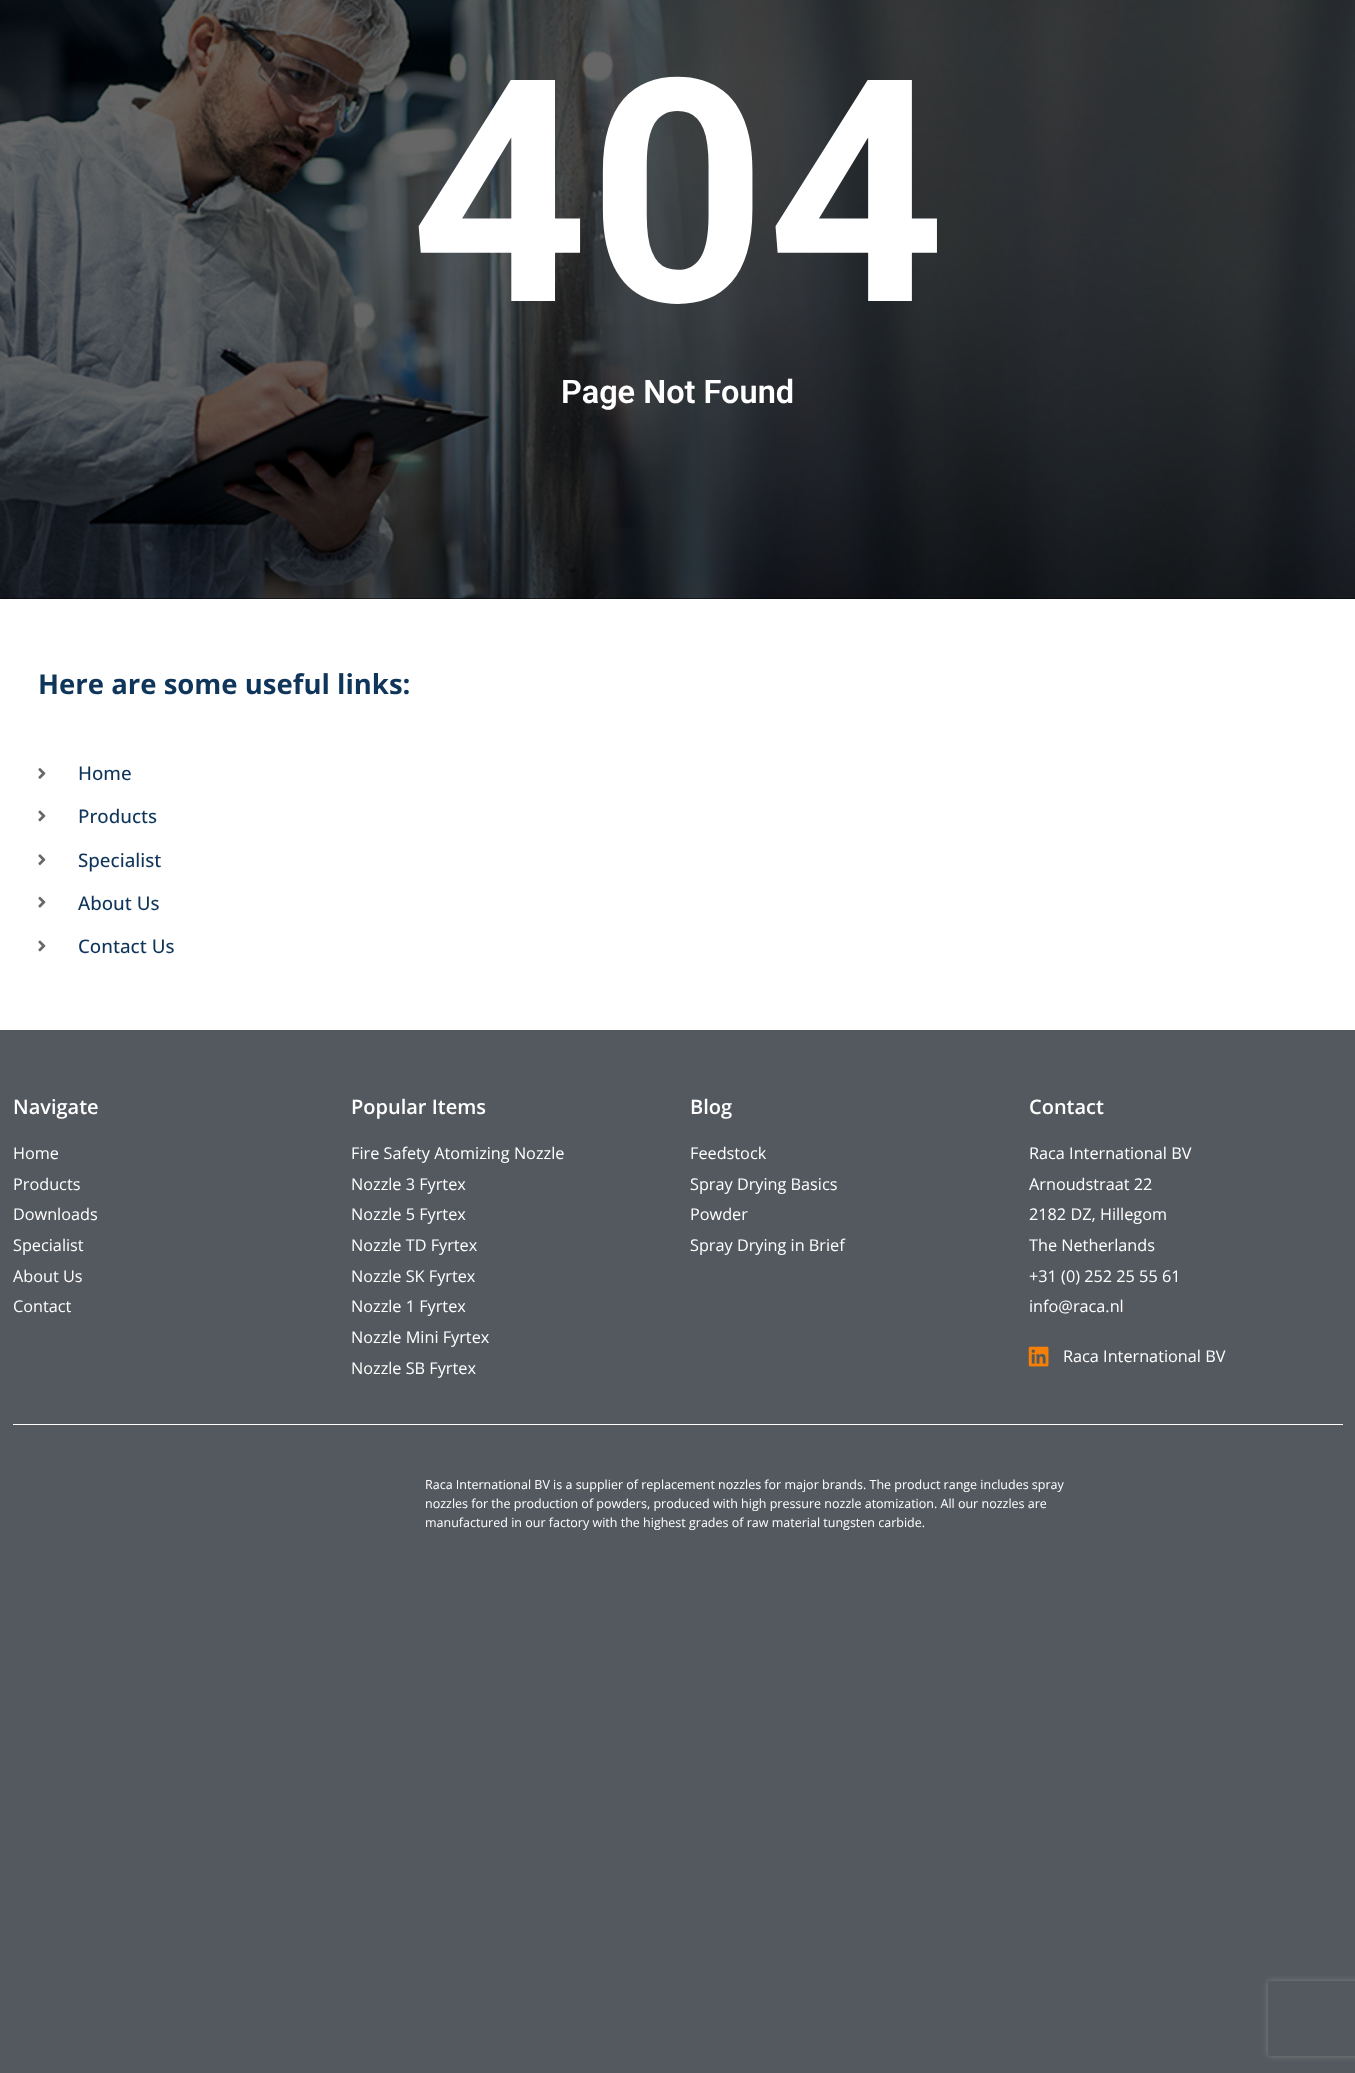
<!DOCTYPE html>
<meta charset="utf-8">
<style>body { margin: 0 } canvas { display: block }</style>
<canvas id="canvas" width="1355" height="2073"></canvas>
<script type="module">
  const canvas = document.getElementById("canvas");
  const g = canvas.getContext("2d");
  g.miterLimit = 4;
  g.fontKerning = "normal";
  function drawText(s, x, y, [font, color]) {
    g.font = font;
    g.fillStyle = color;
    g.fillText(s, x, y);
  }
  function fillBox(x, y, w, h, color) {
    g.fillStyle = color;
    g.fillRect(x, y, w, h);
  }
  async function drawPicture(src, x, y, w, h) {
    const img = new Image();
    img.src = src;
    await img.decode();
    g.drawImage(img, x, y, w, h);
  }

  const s1 = ["bold 311px Roboto", "#FFFFFF"];
  const s2 = ["600 32.5px Roboto", "#FFFFFF"];
  const s3 = ["bold 27.5px Open Sans", "#0F355A"];
  const s4 = ["500 18.75px Open Sans", "#0F355A"];
  const s5 = ["600 20px Open Sans", "#FFFFFF"];
  const s6 = ["16.25px Open Sans", "#FFFFFF"];
  const s7 = ["12.5px Open Sans", "#FFFFFF"];

  fillBox(0, 0, 1355, 2073, "#FFFFFF");
  fillBox(0, 0, 1355, 599, "#000000");
  await drawPicture("pic1.png", 0, 0, 1355, 599);
  drawText("404", 410, 301, s1);
  drawText("Page Not Found", 561, 403, s2);
  drawText("Here are some useful links:", 38, 694, s3);
  await drawPicture("pic2.png", 38, 768, 8, 11);
  drawText("Home", 78, 780, s4);
  await drawPicture("pic3.png", 38, 810, 8, 12);
  drawText("Products", 78, 823, s4);
  await drawPicture("pic4.png", 38, 854, 8, 12);
  drawText("Specialist", 78, 867, s4);
  await drawPicture("pic5.png", 38, 896, 8, 12);
  drawText("About Us", 78, 910, s4);
  await drawPicture("pic3.png", 38, 940, 8, 12);
  drawText("Contact Us", 78, 953, s4);
  fillBox(0, 1030, 1355, 1043, "#54595F");
  drawText("Navigate", 13, 1114, s5);
  drawText("Home", 13, 1159, s6);
  drawText("Products", 13, 1190, s6);
  drawText("Downloads", 13, 1220, s6);
  drawText("Specialist", 13, 1251, s6);
  drawText("About Us", 13, 1282, s6);
  drawText("Contact", 13, 1312, s6);
  drawText("Popular Items", 351, 1114, s5);
  drawText("Fire Safety Atomizing Nozzle", 351, 1159, s6);
  drawText("Nozzle 3 Fyrtex", 351, 1190, s6);
  drawText("Nozzle 5 Fyrtex", 351, 1220, s6);
  drawText("Nozzle TD Fyrtex", 351, 1251, s6);
  drawText("Nozzle SK Fyrtex", 351, 1282, s6);
  drawText("Nozzle 1 Fyrtex", 351, 1312, s6);
  drawText("Nozzle Mini Fyrtex", 351, 1343, s6);
  drawText("Nozzle SB Fyrtex", 351, 1374, s6);
  drawText("Blog", 690, 1114, s5);
  drawText("Feedstock", 690, 1159, s6);
  drawText("Spray Drying Basics", 690, 1190, s6);
  drawText("Powder", 690, 1220, s6);
  drawText("Spray Drying in Brief", 690, 1251, s6);
  drawText("Contact", 1029, 1114, s5);
  drawText("Raca International BV", 1029, 1159, s6);
  drawText("Arnoudstraat 22", 1029, 1190, s6);
  drawText("2182 DZ, Hillegom", 1029, 1220, s6);
  drawText("The Netherlands", 1029, 1251, s6);
  drawText("+31 (0) 252 25 55 61", 1029, 1282, s6);
  drawText("info@raca.nl", 1029, 1312, s6);
  await drawPicture("pic6.png", 1028, 1346, 21, 21);
  drawText("Raca International BV", 1063, 1362, s6);
  fillBox(13, 1424, 1330, 1, "#FFFFFF");
  drawText("Raca International BV is a supplier of replacement nozzles for major brands. The product range includes spray", 425, 1489, s7);
  drawText("nozzles for the production of powders, produced with high pressure nozzle atomization. All our nozzles are", 425, 1508, s7);
  drawText("manufactured in our factory with the highest grades of raw material tungsten carbide.", 425, 1527, s7);
  g.save();
  g.beginPath();
  g.moveTo(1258, 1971);
  g.lineTo(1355, 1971);
  g.lineTo(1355, 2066);
  g.lineTo(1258, 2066);
  g.closePath();
  g.moveTo(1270.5, 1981);
  g.lineTo(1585.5, 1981);
  g.bezierCurveTo(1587, 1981, 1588, 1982, 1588, 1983.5);
  g.lineTo(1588, 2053.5);
  g.bezierCurveTo(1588, 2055, 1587, 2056, 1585.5, 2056);
  g.lineTo(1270.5, 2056);
  g.bezierCurveTo(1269, 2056, 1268, 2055, 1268, 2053.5);
  g.lineTo(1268, 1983.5);
  g.bezierCurveTo(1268, 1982, 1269, 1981, 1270.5, 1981);
  g.closePath();
  g.clip("evenodd");
  g.fillStyle = "#808080";
  g.filter = "blur(3px)";
  g.beginPath();
  g.roundRect(1268, 1981, 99, 75, 2.5);
  g.fill();
  g.filter = "none";
  g.restore();
</script>
